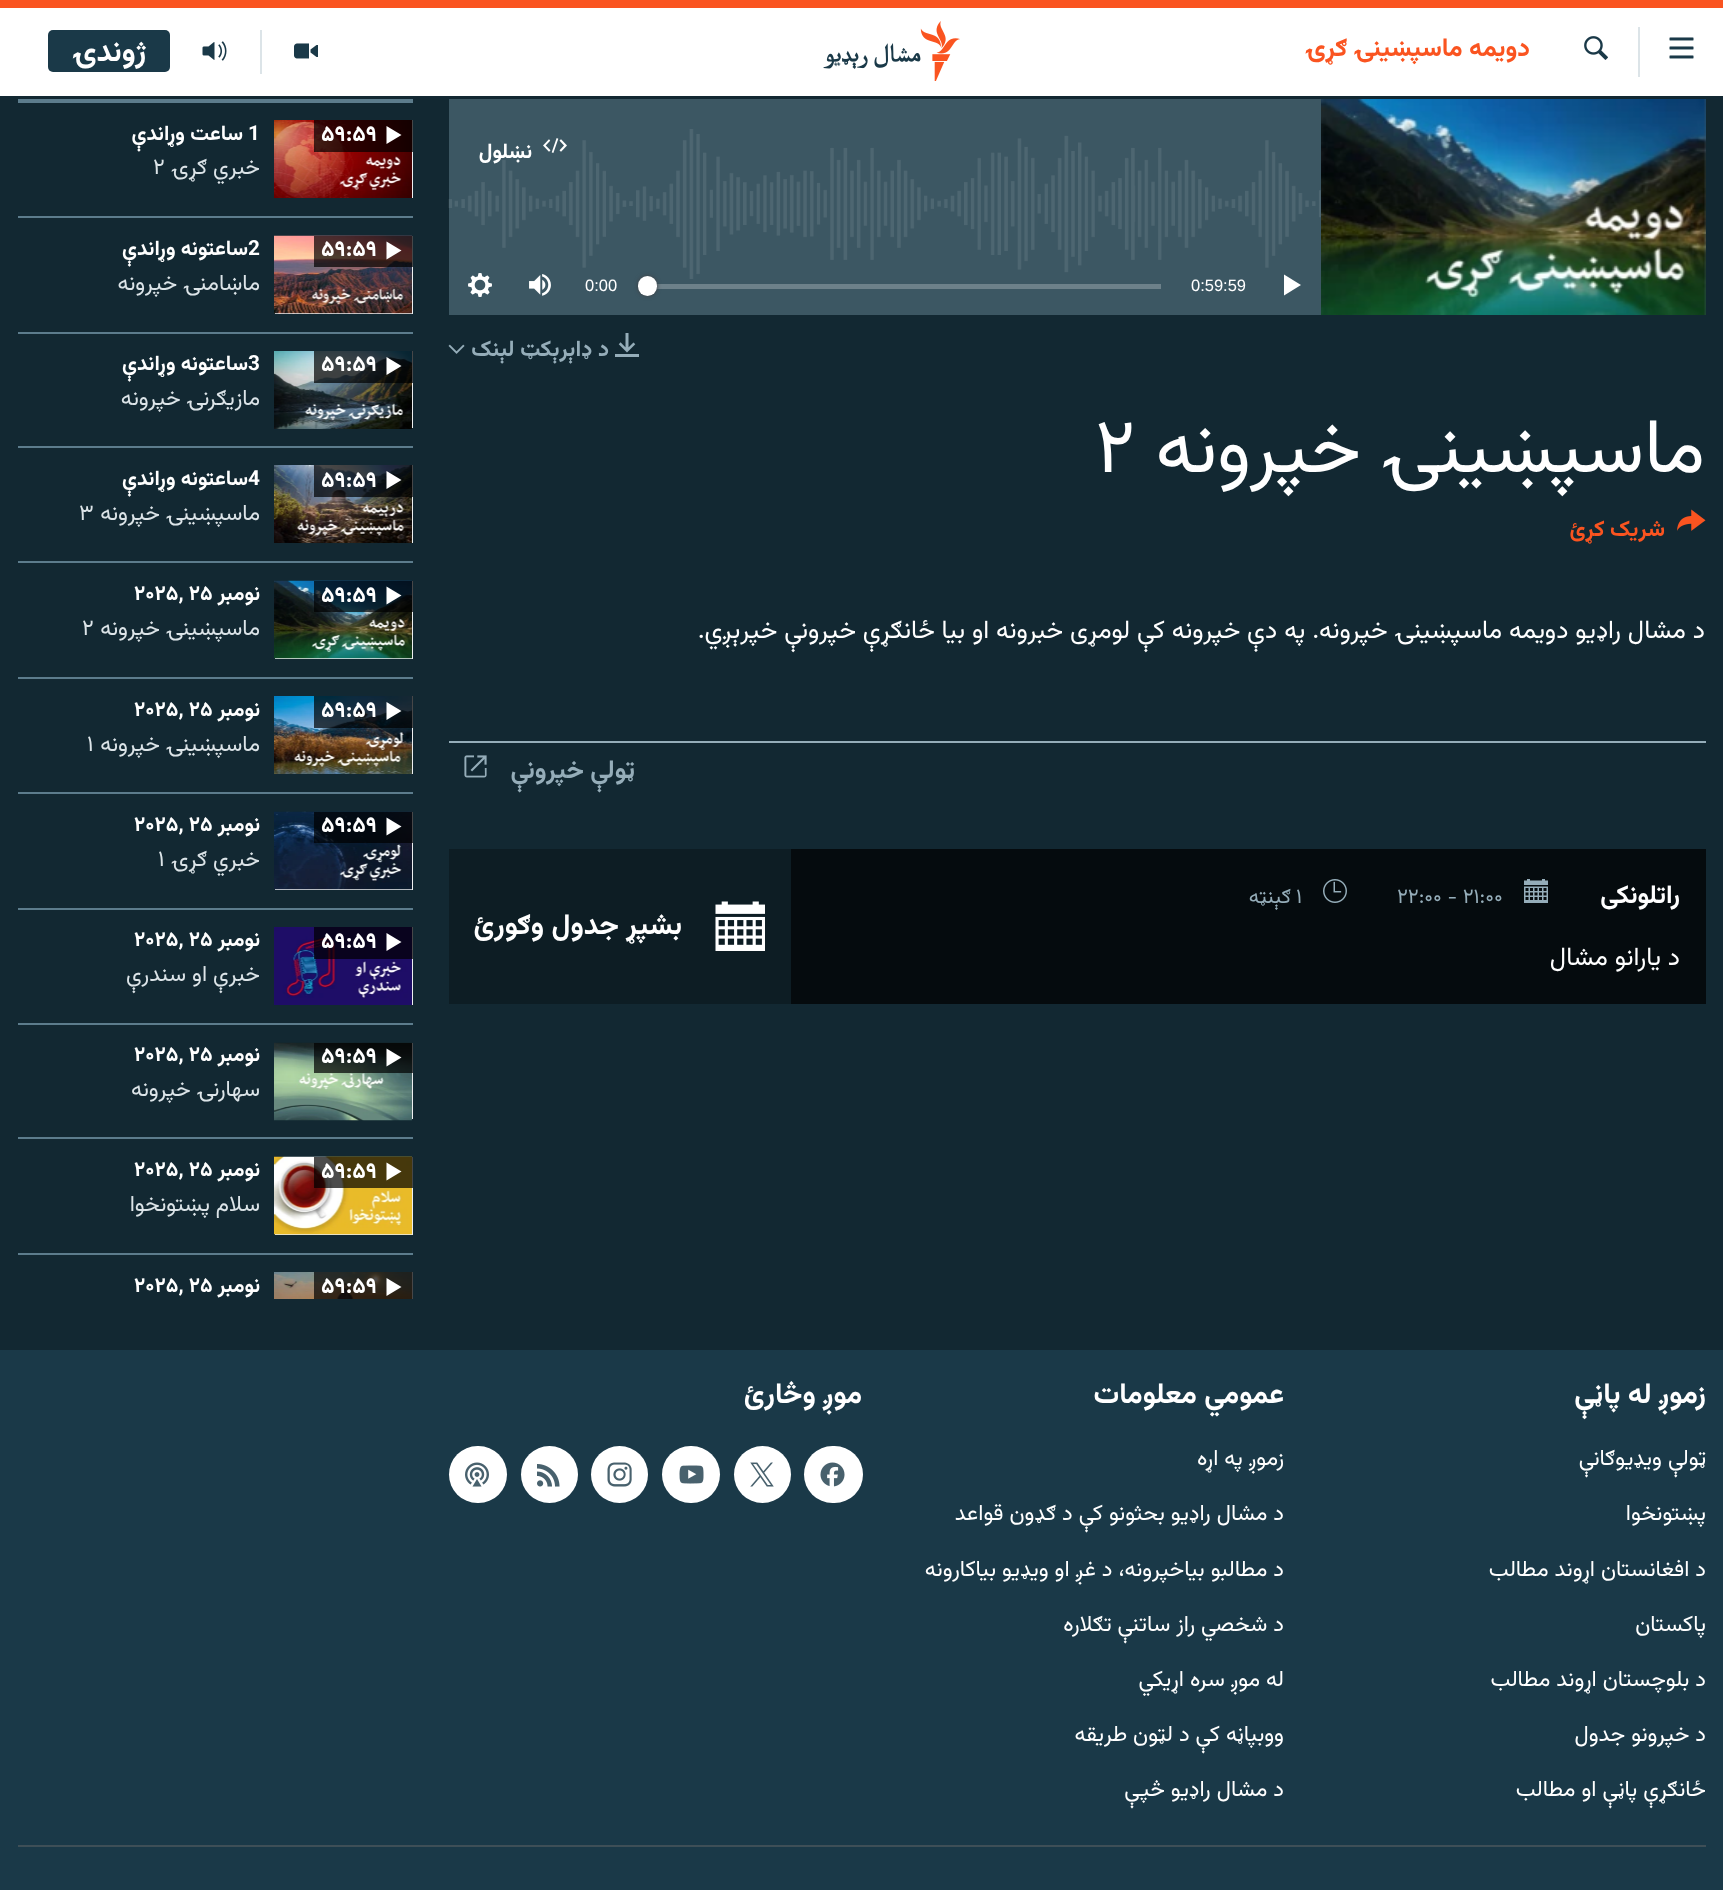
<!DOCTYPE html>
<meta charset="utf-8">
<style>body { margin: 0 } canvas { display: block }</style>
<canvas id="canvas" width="1723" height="1890"></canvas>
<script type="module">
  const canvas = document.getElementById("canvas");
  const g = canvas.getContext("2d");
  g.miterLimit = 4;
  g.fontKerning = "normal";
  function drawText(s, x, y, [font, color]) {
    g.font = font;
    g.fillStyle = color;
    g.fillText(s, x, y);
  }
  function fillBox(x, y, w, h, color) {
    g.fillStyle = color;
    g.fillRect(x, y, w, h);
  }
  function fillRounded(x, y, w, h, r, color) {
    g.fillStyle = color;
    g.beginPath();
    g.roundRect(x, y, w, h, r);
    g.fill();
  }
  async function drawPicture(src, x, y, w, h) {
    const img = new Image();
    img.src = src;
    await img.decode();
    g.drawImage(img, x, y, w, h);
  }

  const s1 = ["bold 25.5px Vazirmatn", "#FA5420"];
  const s2 = ["bold 30px Vazirmatn", "#FFFFFF"];
  const s3 = ["bold 20.75px Vazirmatn", "#FFFFFF"];
  const s4 = ["16.5px Liberation Sans", "#FFFFFF"];
  const s5 = ["bold 22.25px Vazirmatn", "#95ADB9"];
  const s6 = ["76.5px Vazirmatn", "#FFFFFF"];
  const s7 = ["bold 22.25px Vazirmatn", "#FA5420"];
  const s8 = ["25.5px Vazirmatn", "#FFFFFF"];
  const s9 = ["bold 25.5px Vazirmatn", "#95ADB9"];
  const s10 = ["bold 25.5px Vazirmatn", "#FFFFFF"];
  const s11 = ["20.75px Vazirmatn", "#95ADB9"];
  const s12 = ["bold 28.75px Vazirmatn", "#FFFFFF"];
  const s13 = ["bold 22.25px Vazirmatn", "#FFFFFF"];
  const s14 = ["22.25px Vazirmatn", "#DCE4E8"];
  const s15 = ["22.25px Vazirmatn", "#FFFFFF"];

  fillBox(0, 0, 1723, 1890, "#122832");
  fillBox(0, 8, 1723, 88, "#FFFFFF");
  fillBox(0, 0, 1723, 8, "#FA5420");
  await drawPicture("pic1.png", 1669, 37, 25, 22);
  fillBox(1638, 27, 2, 50, "#DCE4E8");
  await drawPicture("pic2.png", 1584, 36, 24, 24);
  g.direction = "rtl";
  drawText("دویمه ماسپښینۍ ګړۍ", 1530, 56, s1);
  await drawPicture("pic3.png", 823, 21, 137, 60);
  fillBox(260, 30, 2, 44, "#DCE4E8");
  await drawPicture("pic4.png", 294, 43, 24, 16);
  await drawPicture("pic5.png", 202, 41, 25, 20);
  fillRounded(48, 30, 122, 42, 5, "#1A3948");
  drawText("ژوندۍ", 146, 61, s2);
  fillBox(449, 99, 1257, 216, "#3C5763");
  await drawPicture("pic6.png", 448, 129, 873, 150);
  await drawPicture("pic7.png", 1321, 99, 385, 216);
  await drawPicture("pic8.png", 543, 138, 24, 15);
  drawText("نښلول", 532, 158, s3);
  g.beginPath();
  g.moveTo(1284, 295.5);
  g.lineTo(1301, 285);
  g.lineTo(1284, 274.5);
  g.closePath();
  g.fill();
  g.direction = "ltr";
  drawText("0:59:59", 1191, 291, s4);
  fillBox(656, 284, 505, 5, "#6D818A");
  g.fillStyle = "#414144";
  g.filter = "blur(2px)";
  g.beginPath();
  g.roundRect(638, 276, 19, 20, 9.5);
  g.fill();
  g.filter = "none";
  fillRounded(638, 276, 19, 20, 9.5, "#FFFFFF");
  drawText("0:00", 585, 291, s4);
  await drawPicture("pic9.png", 529, 274, 22, 22);
  await drawPicture("pic10.png", 468, 273, 24, 24);
  await drawPicture("pic11.png", 615, 333, 24, 24);
  g.direction = "rtl";
  drawText("د ډاېرېکټ لېنک", 609, 356, s5);
  await drawPicture("pic12.png", 448, 344, 17, 10);
  drawText("ماسپښينۍ خپرونه", 1705, 472, s6);
  g.direction = "ltr";
  drawText("۲", 1095, 472, s6);
  await drawPicture("pic13.png", 1677, 509, 29, 22);
  g.direction = "rtl";
  drawText("شریک کړئ", 1665, 536, s7);
  drawText("د مشال راډیو دویمه ماسپښینۍ خپرونه. په دې خپرونه کې لومړی خبرونه او بیا ځانګړې خپرونې خپرېږي.", 1705, 638, s8);
  fillBox(449, 741, 1257, 2, "#95ADB9");
  drawText("ټولې خپرونې", 635, 778, s9);
  await drawPicture("pic14.png", 464, 755, 23, 23);
  fillBox(791, 849, 915, 155, "#050B0E");
  drawText("راتلونکی", 1680, 903, s10);
  await drawPicture("pic15.png", 1524, 879, 24, 24);
  g.direction = "ltr";
  drawText("۲۲:۰۰ - ۲۱:۰۰", 1397, 903, s11);
  await drawPicture("pic16.png", 1323, 879, 24, 24);
  drawText("۱", 1296, 903, s11);
  g.direction = "rtl";
  drawText("ګېنټه", 1291, 903, s11);
  drawText("د یارانو مشال", 1680, 965, s8);
  fillBox(449, 849, 342, 155, "#0D1D24");
  await drawPicture("pic17.png", 715, 901, 50, 50);
  drawText("بشپړ جدول وګورئ", 682, 934, s12);
  fillBox(18, 99, 395, 4, "#5C7C8C");
  fillBox(412, 120, 1, 78, "#EDEFF0");
  await drawPicture("pic18.png", 274, 120, 138, 78);
  fillBox(314, 120, 99, 32, "rgba(0, 0, 0, 0.7)");
  g.fillStyle = "#FFFFFF";
  g.beginPath();
  g.moveTo(386.5, 144);
  g.lineTo(401.5, 135);
  g.lineTo(386.5, 126);
  g.closePath();
  g.fill();
  g.direction = "ltr";
  drawText("۵۹:۵۹", 321, 141, s13);
  drawText("1", 248, 140, s3);
  g.direction = "rtl";
  drawText("ساعت وړاندې", 243, 140, s3);
  drawText("خبري ګړۍ", 260, 174, s14);
  g.direction = "ltr";
  drawText("۲", 153, 174, s14);
  fillBox(18, 216, 395, 2, "#5C7C8C");
  fillBox(275, 236, 138, 78, "#EDEFF0");
  await drawPicture("pic19.png", 274, 235, 138, 79);
  fillBox(314, 236, 99, 31, "rgba(0, 0, 0, 0.7)");
  g.fillStyle = "#FFFFFF";
  g.beginPath();
  g.moveTo(386.5, 259.5);
  g.lineTo(401.5, 250.5);
  g.lineTo(386.5, 241.5);
  g.closePath();
  g.fill();
  drawText("۵۹:۵۹", 321, 256, s13);
  drawText("2", 248, 255, s3);
  g.direction = "rtl";
  drawText("ساعتونه وړاندې", 248, 255, s3);
  drawText("ماښامنۍ خپرونه", 260, 290, s14);
  fillBox(18, 332, 395, 2, "#5C7C8C");
  fillBox(412, 351, 1, 77, "#EDEFF0");
  await drawPicture("pic20.png", 274, 351, 138, 78);
  fillBox(314, 351, 99, 32, "rgba(0, 0, 0, 0.7)");
  g.fillStyle = "#FFFFFF";
  g.beginPath();
  g.moveTo(386.5, 375);
  g.lineTo(401.5, 366);
  g.lineTo(386.5, 357);
  g.closePath();
  g.fill();
  g.direction = "ltr";
  drawText("۵۹:۵۹", 321, 371, s13);
  drawText("3", 248, 370, s3);
  g.direction = "rtl";
  drawText("ساعتونه وړاندې", 248, 370, s3);
  drawText("مازیګرنۍ خپرونه", 260, 405, s14);
  fillBox(18, 446, 395, 2, "#5C7C8C");
  fillBox(412, 465, 1, 78, "#EDEFF0");
  await drawPicture("pic21.png", 274, 465, 138, 78);
  fillBox(314, 465, 99, 32, "rgba(0, 0, 0, 0.7)");
  g.fillStyle = "#FFFFFF";
  g.beginPath();
  g.moveTo(386.5, 489);
  g.lineTo(401.5, 480);
  g.lineTo(386.5, 471);
  g.closePath();
  g.fill();
  g.direction = "ltr";
  drawText("۵۹:۵۹", 321, 487, s13);
  drawText("4", 248, 485, s3);
  g.direction = "rtl";
  drawText("ساعتونه وړاندې", 248, 485, s3);
  drawText("ماسپښینۍ خپرونه", 260, 520, s14);
  g.direction = "ltr";
  drawText("۳", 79, 520, s14);
  fillBox(18, 561, 395, 2, "#5C7C8C");
  fillBox(275, 581, 138, 78, "#EDEFF0");
  await drawPicture("pic22.png", 274, 580, 138, 79);
  fillBox(314, 581, 99, 31, "rgba(0, 0, 0, 0.7)");
  g.fillStyle = "#FFFFFF";
  g.beginPath();
  g.moveTo(386.5, 604.5);
  g.lineTo(401.5, 595.5);
  g.lineTo(386.5, 586.5);
  g.closePath();
  g.fill();
  drawText("۵۹:۵۹", 321, 602, s13);
  g.direction = "rtl";
  drawText("نومبر", 260, 600, s3);
  g.direction = "ltr";
  drawText("۲۰۲۵, ۲۵", 134, 600, s3);
  g.direction = "rtl";
  drawText("ماسپښينۍ خپرونه", 260, 635, s14);
  g.direction = "ltr";
  drawText("۲", 82, 635, s14);
  fillBox(18, 677, 395, 2, "#5C7C8C");
  fillBox(412, 696, 1, 78, "#EDEFF0");
  await drawPicture("pic23.png", 274, 696, 138, 78);
  fillBox(314, 696, 99, 32, "rgba(0, 0, 0, 0.7)");
  g.fillStyle = "#FFFFFF";
  g.beginPath();
  g.moveTo(386.5, 720);
  g.lineTo(401.5, 711);
  g.lineTo(386.5, 702);
  g.closePath();
  g.fill();
  drawText("۵۹:۵۹", 321, 717, s13);
  g.direction = "rtl";
  drawText("نومبر", 260, 716, s3);
  g.direction = "ltr";
  drawText("۲۰۲۵, ۲۵", 134, 716, s3);
  g.direction = "rtl";
  drawText("ماسپښينۍ خپرونه", 260, 751, s14);
  g.direction = "ltr";
  drawText("۱", 87, 751, s14);
  fillBox(18, 792, 395, 2, "#5C7C8C");
  fillBox(275, 812, 138, 78, "#EDEFF0");
  await drawPicture("pic24.png", 274, 811, 138, 79);
  fillBox(314, 812, 99, 31, "rgba(0, 0, 0, 0.7)");
  g.fillStyle = "#FFFFFF";
  g.beginPath();
  g.moveTo(386.5, 835.5);
  g.lineTo(401.5, 826.5);
  g.lineTo(386.5, 817.5);
  g.closePath();
  g.fill();
  drawText("۵۹:۵۹", 321, 832, s13);
  g.direction = "rtl";
  drawText("نومبر", 260, 831, s3);
  g.direction = "ltr";
  drawText("۲۰۲۵, ۲۵", 134, 831, s3);
  g.direction = "rtl";
  drawText("خبري ګړۍ", 260, 866, s14);
  g.direction = "ltr";
  drawText("۱", 158, 866, s14);
  fillBox(18, 908, 395, 2, "#5C7C8C");
  fillBox(412, 927, 1, 78, "#EDEFF0");
  await drawPicture("pic25.png", 274, 927, 138, 78);
  fillBox(314, 927, 99, 32, "rgba(0, 0, 0, 0.7)");
  g.fillStyle = "#FFFFFF";
  g.beginPath();
  g.moveTo(386.5, 951);
  g.lineTo(401.5, 942);
  g.lineTo(386.5, 933);
  g.closePath();
  g.fill();
  drawText("۵۹:۵۹", 321, 948, s13);
  g.direction = "rtl";
  drawText("نومبر", 260, 946, s3);
  g.direction = "ltr";
  drawText("۲۰۲۵, ۲۵", 134, 946, s3);
  g.direction = "rtl";
  drawText("خبرې او سندرې", 260, 981, s14);
  fillBox(18, 1023, 395, 2, "#5C7C8C");
  fillBox(412, 1043, 1, 76, "#EDEFF0");
  await drawPicture("pic26.png", 274, 1042, 138, 79);
  fillBox(314, 1043, 99, 30, "rgba(0, 0, 0, 0.7)");
  g.fillStyle = "#FFFFFF";
  g.beginPath();
  g.moveTo(386.5, 1066.5);
  g.lineTo(401.5, 1057.5);
  g.lineTo(386.5, 1048.5);
  g.closePath();
  g.fill();
  g.direction = "ltr";
  drawText("۵۹:۵۹", 321, 1063, s13);
  g.direction = "rtl";
  drawText("نومبر", 260, 1061, s3);
  g.direction = "ltr";
  drawText("۲۰۲۵, ۲۵", 134, 1061, s3);
  g.direction = "rtl";
  drawText("سهارنۍ خپرونه", 260, 1096, s14);
  fillBox(18, 1137, 395, 2, "#5C7C8C");
  fillBox(275, 1157, 138, 78, "#EDEFF0");
  await drawPicture("pic27.png", 274, 1156, 138, 79);
  fillBox(314, 1157, 99, 31, "rgba(0, 0, 0, 0.7)");
  g.fillStyle = "#FFFFFF";
  g.beginPath();
  g.moveTo(386.5, 1180.5);
  g.lineTo(401.5, 1171.5);
  g.lineTo(386.5, 1162.5);
  g.closePath();
  g.fill();
  g.direction = "ltr";
  drawText("۵۹:۵۹", 321, 1178, s13);
  g.direction = "rtl";
  drawText("نومبر", 260, 1176, s3);
  g.direction = "ltr";
  drawText("۲۰۲۵, ۲۵", 134, 1176, s3);
  g.direction = "rtl";
  drawText("سلام پښتونخوا", 260, 1211, s14);
  fillBox(18, 1253, 395, 2, "#5C7C8C");
  fillBox(412, 1272, 1, 27, "#EDEFF0");
  await drawPicture("pic28.png", 274, 1272, 138, 27);
  fillBox(314, 1272, 99, 27, "rgba(0, 0, 0, 0.7)");
  g.fillStyle = "#FFFFFF";
  g.beginPath();
  g.moveTo(386.5, 1296);
  g.lineTo(401.5, 1287);
  g.lineTo(386.5, 1278);
  g.closePath();
  g.fill();
  g.direction = "ltr";
  drawText("۵۹:۵۹", 321, 1293, s13);
  g.direction = "rtl";
  drawText("نومبر", 260, 1292, s3);
  g.direction = "ltr";
  drawText("۲۰۲۵, ۲۵", 134, 1292, s3);
  fillBox(0, 1350, 1723, 540, "#1A3948");
  g.direction = "rtl";
  drawText("زموږ له پاڼې", 1706, 1403, s12);
  drawText("ټولې ویډیوګانې", 1706, 1465, s15);
  drawText("پښتونخوا", 1706, 1520, s15);
  drawText("د افغانستان اړوند مطالب", 1706, 1576, s15);
  drawText("پاکستان", 1706, 1631, s15);
  drawText("د بلوچستان اړوند مطالب", 1706, 1686, s15);
  drawText("د خپرونو جدول", 1706, 1741, s15);
  drawText("ځانګړې پاڼې او مطالب", 1706, 1796, s15);
  drawText("عمومي معلومات", 1284, 1403, s12);
  drawText("زموږ په اړه", 1284, 1465, s15);
  drawText("د مشال راډيو بحثونو کې د ګډون قواعد", 1284, 1520, s15);
  drawText("د مطالبو بیاخپرونه، د غږ او ویډیو بیاکارونه", 1284, 1576, s15);
  drawText("د شخصي راز ساتنې تګلاره", 1284, 1631, s15);
  drawText("له موږ سره اړیکي", 1284, 1686, s15);
  drawText("ووبپاڼه کې د لټون طریقه", 1284, 1741, s15);
  drawText("د مشال راډیو څپې", 1284, 1796, s15);
  drawText("موږ وڅارئ", 862, 1403, s12);
  fillRounded(804, 1446, 59, 57, 28.5, "#FFFFFF");
  await drawPicture("pic29.png", 820, 1462, 25, 25);
  g.beginPath();
  g.arc(762.5, 1474.5, 28.5, 0, Math.PI * 2);
  g.fill();
  await drawPicture("pic30.png", 750, 1462, 24, 25);
  fillRounded(662, 1446, 58, 57, 28.5, "#FFFFFF");
  await drawPicture("pic31.png", 679, 1465, 25, 19);
  g.beginPath();
  g.arc(619.5, 1474.5, 28.5, 0, Math.PI * 2);
  g.fill();
  await drawPicture("pic32.png", 607, 1462, 25, 25);
  g.beginPath();
  g.arc(549.5, 1474.5, 28.5, 0, Math.PI * 2);
  g.fill();
  await drawPicture("pic33.png", 537, 1464, 23, 23);
  fillRounded(449, 1446, 58, 57, 28.5, "#FFFFFF");
  await drawPicture("pic34.png", 465, 1462, 24, 25);
  fillBox(18, 1845, 1688, 2, "#3E4F57");
</script>
